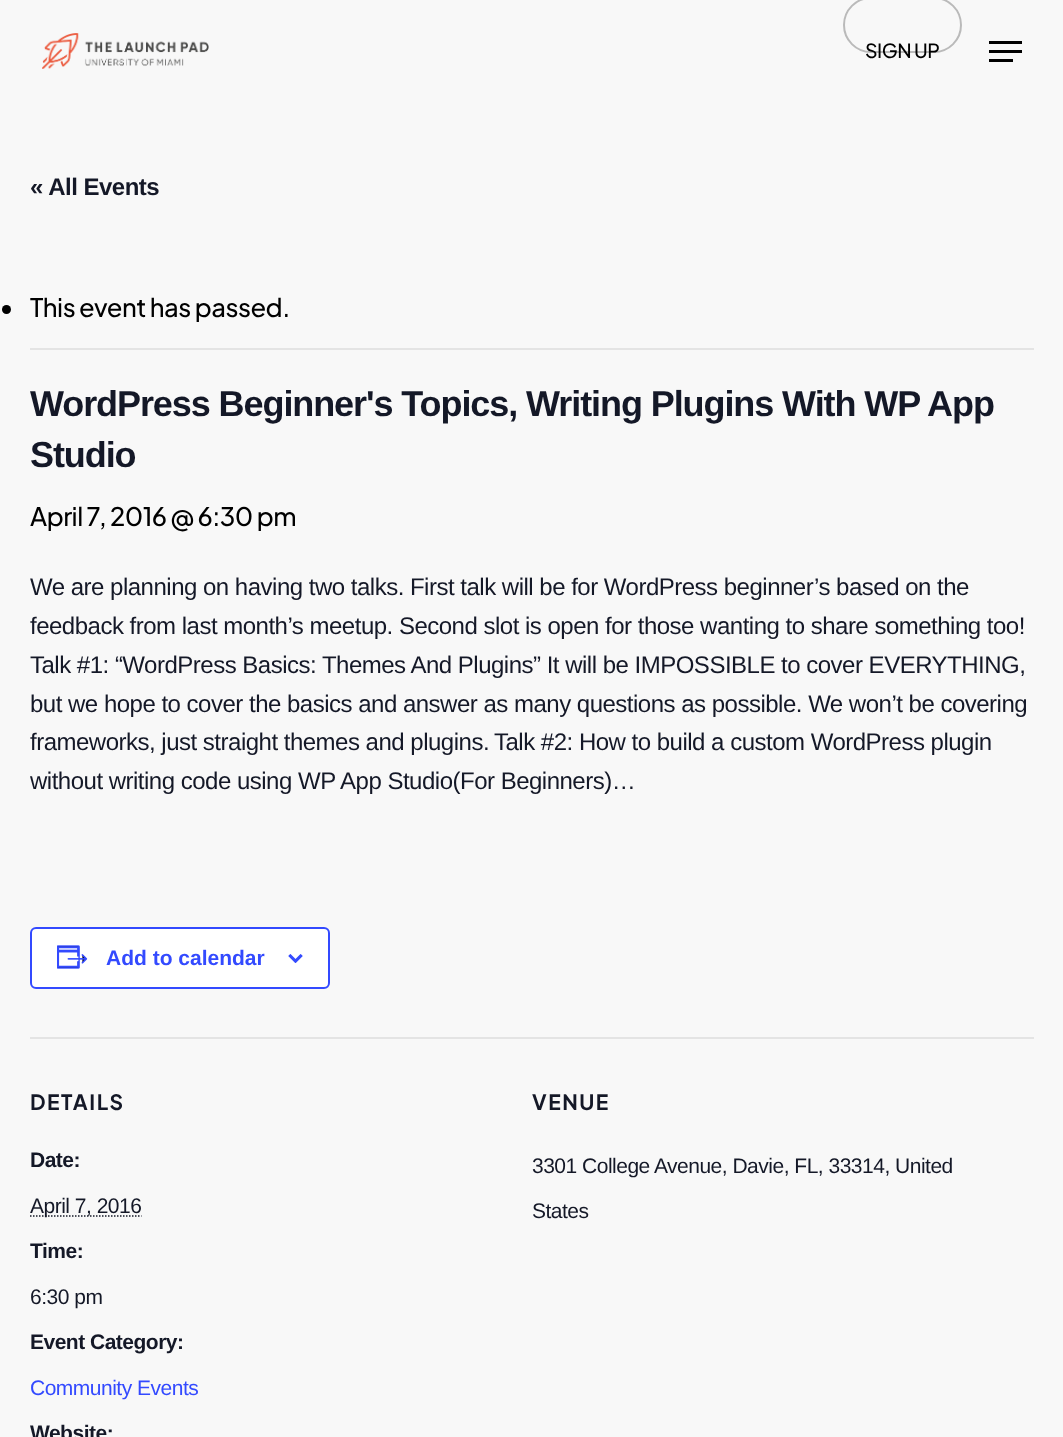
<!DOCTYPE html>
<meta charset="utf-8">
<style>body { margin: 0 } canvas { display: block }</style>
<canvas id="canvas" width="1063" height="1437"></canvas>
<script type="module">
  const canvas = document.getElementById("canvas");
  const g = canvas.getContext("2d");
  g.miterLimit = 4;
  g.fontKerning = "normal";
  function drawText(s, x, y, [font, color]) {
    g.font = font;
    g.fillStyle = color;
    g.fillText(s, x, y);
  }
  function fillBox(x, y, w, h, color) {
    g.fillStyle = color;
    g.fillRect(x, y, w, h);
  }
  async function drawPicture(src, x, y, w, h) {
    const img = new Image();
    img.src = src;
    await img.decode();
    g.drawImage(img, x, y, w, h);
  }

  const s1 = ["500 19.5px Plus Jakarta Sans", "#000000"];
  const s2 = ["bold 24px Liberation Sans", "#141827"];
  const s3 = ["500 25.5px Plus Jakarta Sans", "#000000"];
  const s4 = ["bold 36px Liberation Sans", "#141827"];
  const s5 = ["24px Liberation Sans", "#141827"];
  const s6 = ["bold 21px Liberation Sans", "#334AFF"];
  const s7 = ["bold 21px Plus Jakarta Sans", "#141827"];
  const s8 = ["bold 21px Liberation Sans", "#141827"];
  const s9 = ["21px Liberation Sans", "#141827"];
  const s10 = ["21px Liberation Sans", "#334AFF"];

  fillBox(0, 0, 1063, 1437, "#F8F8F8");
  await drawPicture("pic1.png", 42, 33, 167, 36);
  g.beginPath();
  g.roundRect(844, -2, 117, 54, 27);
  g.strokeStyle = "#BABABA";
  g.lineWidth = 2;
  g.stroke();
  g.letterSpacing = "-0.5px";
  drawText("SIGN UP", 865, 58, s1);
  fillBox(989, 41, 33, 3, "#000000");
  fillBox(989, 59, 24, 3, "#000000");
  fillBox(989, 50, 33, 3, "#000000");
  drawText("« All Events", 30, 195, s2);
  fillBox(30, 348, 1004, 2, "#E4E4E4");
  g.fillStyle = "#000000";
  g.beginPath();
  g.arc(6.5, 309.5, 4.5, 0, Math.PI * 2);
  g.fill();
  drawText("This event has passed.", 30, 317, s3);
  g.letterSpacing = "-1.08px";
  drawText("WordPress Beginner's Topics, Writing Plugins With WP App", 30, 416, s4);
  drawText("Studio", 30, 467, s4);
  g.letterSpacing = "-0.5px";
  drawText("April 7, 2016 @ 6:30 pm", 30, 526, s3);
  drawText("We are planning on having two talks. First talk will be for WordPress beginner’s based on the", 30, 595, s5);
  drawText("feedback from last month’s meetup. Second slot is open for those wanting to share something too!", 30, 634, s5);
  drawText("Talk #1: “WordPress Basics: Themes And Plugins” It will be IMPOSSIBLE to cover EVERYTHING,", 30, 673, s5);
  drawText("but we hope to cover the basics and answer as many questions as possible. We won’t be covering", 30, 712, s5);
  drawText("frameworks, just straight themes and plugins.", 30, 750, s5);
  drawText("Talk #2: How to build a custom WordPress plugin", 494, 750, s5);
  drawText("without writing code using WP App Studio(For Beginners)…", 30, 789, s5);
  g.fillStyle = "#FFFFFF";
  g.beginPath();
  g.roundRect(31, 928, 298, 60, 5);
  g.fill();
  g.strokeStyle = "#334AFF";
  g.stroke();
  await drawPicture("pic2.png", 57, 945, 31, 24);
  g.letterSpacing = "0px";
  drawText("Add to calendar", 106, 965, s6);
  await drawPicture("pic3.png", 288, 954, 15, 9);
  fillBox(30, 1037, 1004, 2, "#E4E4E4");
  g.letterSpacing = "1.5px";
  drawText("DETAILS", 30, 1110, s7);
  g.letterSpacing = "-0.5px";
  drawText("Date:", 30, 1167, s8);
  g.beginPath();
  g.moveTo(30, 1216);
  g.lineTo(141.5, 1216);
  g.strokeStyle = "#141827";
  g.lineWidth = 1.5;
  g.setLineDash([1.5, 1.5]);
  g.stroke();
  drawText("April 7, 2016", 30, 1213, s9);
  drawText("Time:", 30, 1258, s8);
  drawText("6:30 pm", 30, 1304, s9);
  drawText("Event Category:", 30, 1349, s8);
  drawText("Community Events", 30, 1395, s10);
  drawText("Website:", 30, 1440, s8);
  g.letterSpacing = "1.5px";
  drawText("VENUE", 532, 1110, s7);
  g.letterSpacing = "-0.5px";
  drawText("3301 College Avenue, Davie, FL, 33314, United", 532, 1173, s9);
  drawText("States", 532, 1218, s9);
</script>
